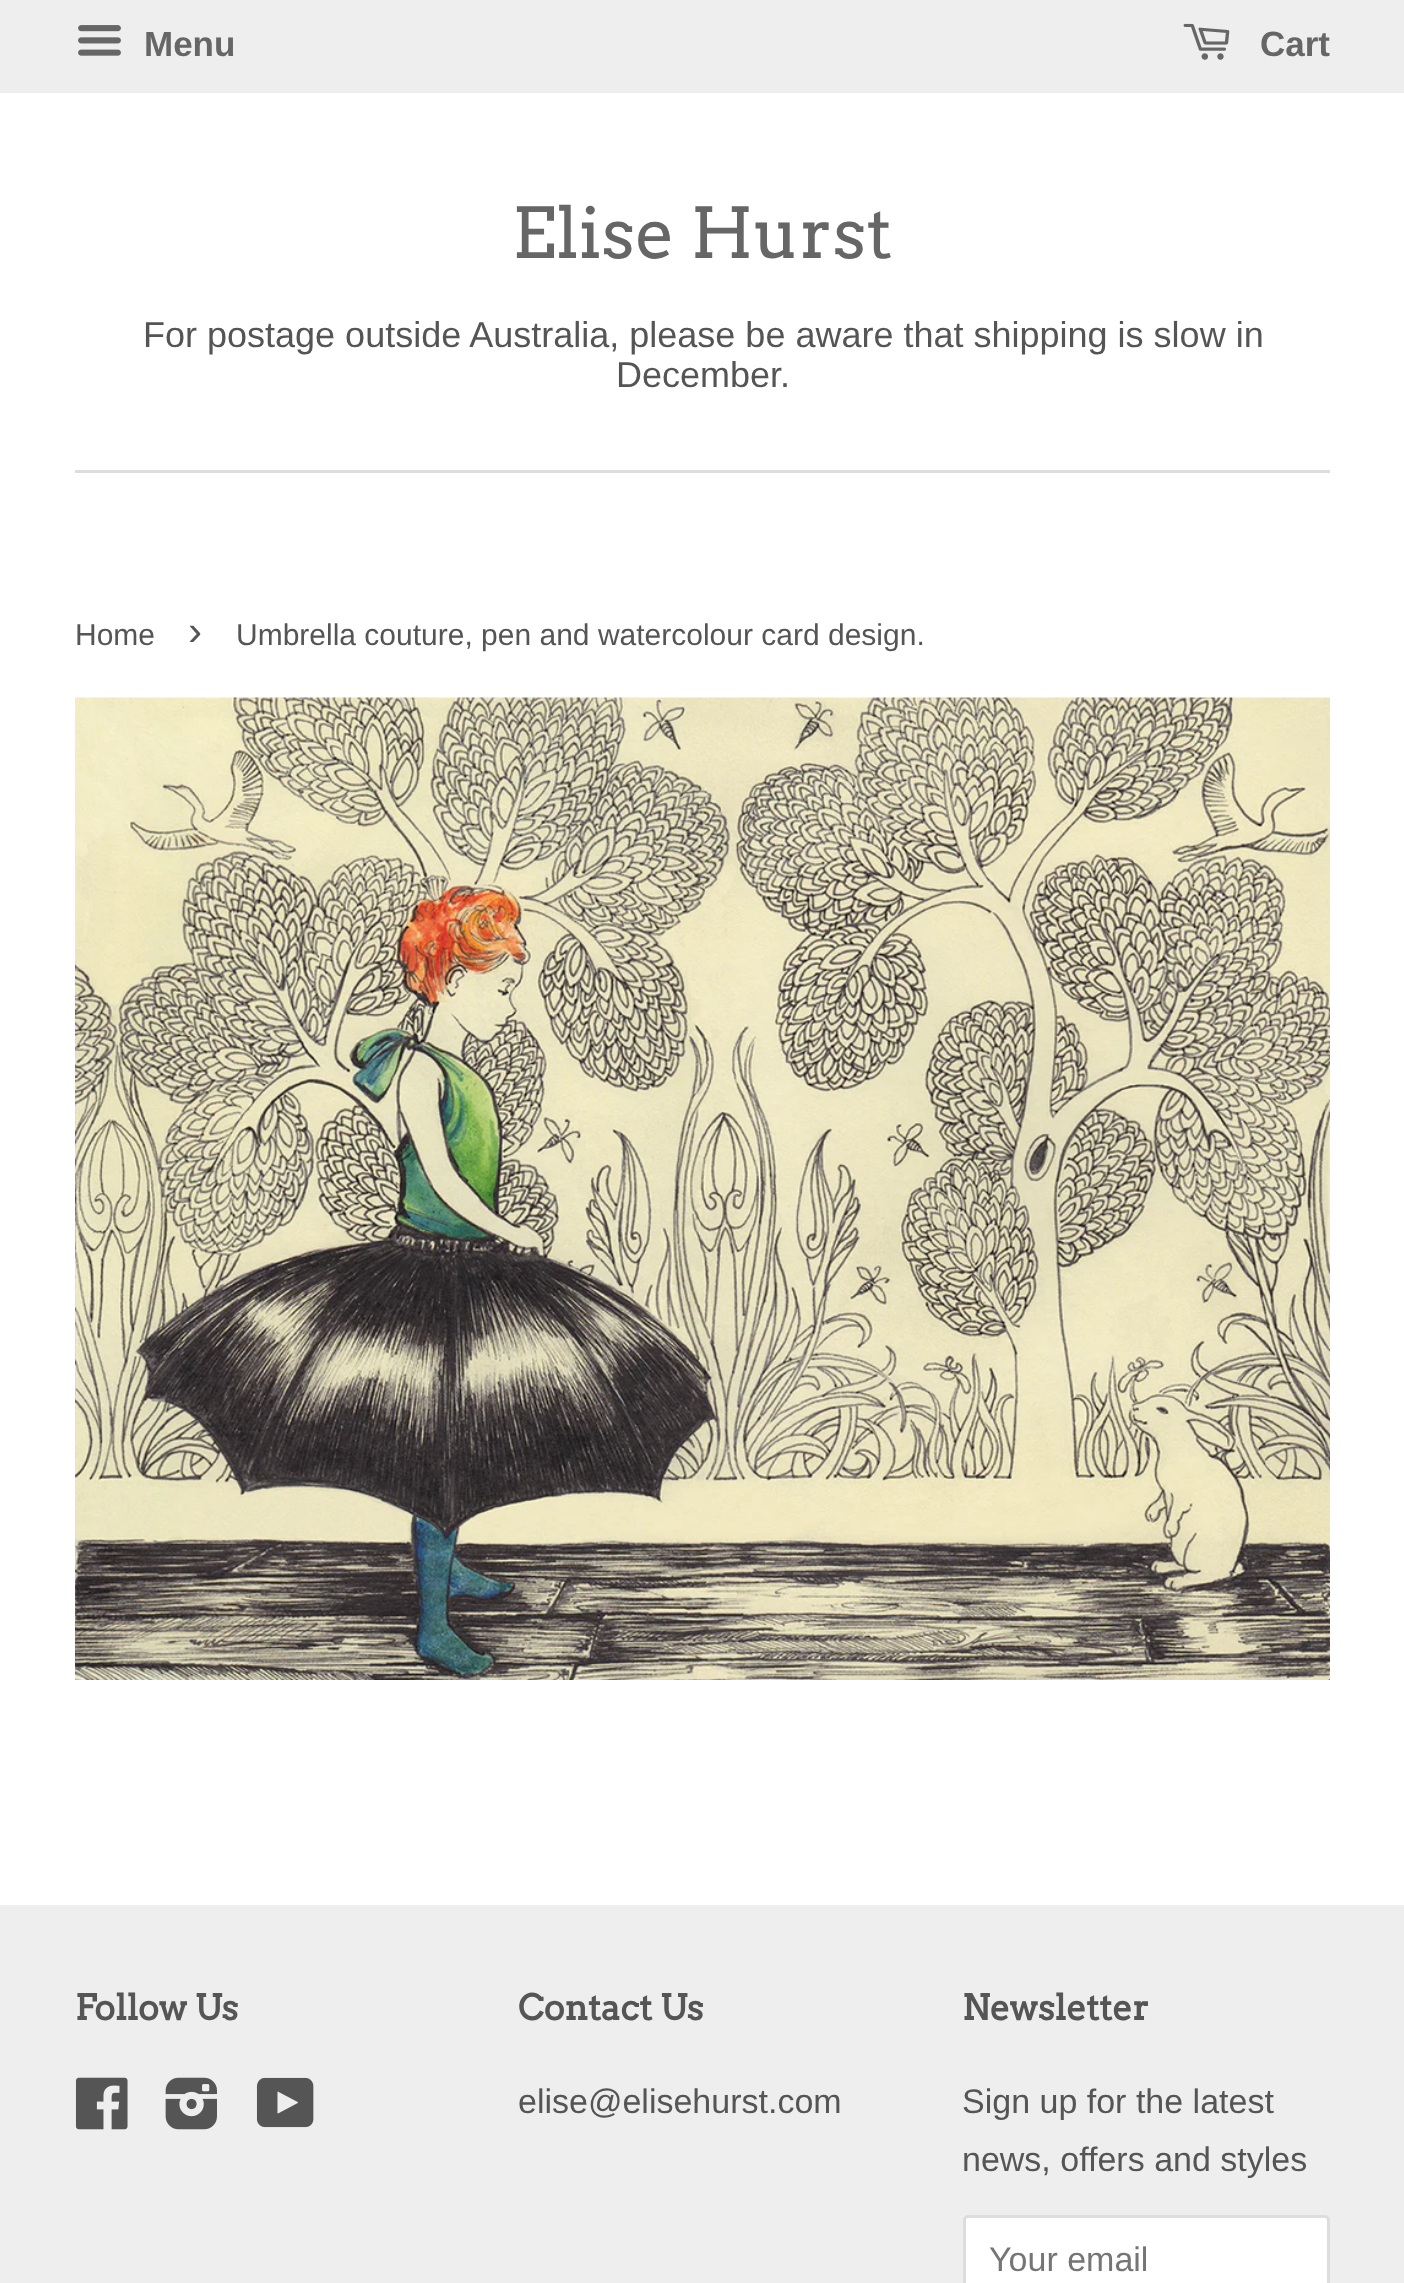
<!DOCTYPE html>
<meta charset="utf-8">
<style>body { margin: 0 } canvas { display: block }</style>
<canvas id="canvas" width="1404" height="2283"></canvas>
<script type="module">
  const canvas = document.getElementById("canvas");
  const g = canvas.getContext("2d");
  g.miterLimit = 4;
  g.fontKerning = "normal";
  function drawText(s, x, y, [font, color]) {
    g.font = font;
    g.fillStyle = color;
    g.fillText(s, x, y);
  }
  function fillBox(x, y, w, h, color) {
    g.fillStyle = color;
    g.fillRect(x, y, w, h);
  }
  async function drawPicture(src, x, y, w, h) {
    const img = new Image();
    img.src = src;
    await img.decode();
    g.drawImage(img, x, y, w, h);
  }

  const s1 = ["bold 35px Liberation Sans", "#666666"];
  const s2 = ["70px Arvo", "#666666"];
  const s3 = ["36px Liberation Sans", "#555555"];
  const s4 = ["30px Liberation Sans", "#555555"];
  const s5 = ["42px Liberation Sans", "#555555"];
  const s6 = ["bold 35px Arvo", "#555555"];
  const s7 = ["34px Liberation Sans", "#555555"];
  const s8 = ["34px Liberation Sans", "#757575"];

  fillBox(0, 0, 1404, 2283, "#FFFFFF");
  fillBox(0, 0, 1404, 93, "#EEEEEE");
  await drawPicture("pic1.png", 78, 25, 43, 31);
  drawText("Menu", 144, 56, s1);
  await drawPicture("pic2.png", 1183, 23, 47, 37);
  drawText("Cart", 1260, 56, s1);
  fillBox(75, 470, 1255, 3, "#DDDDDD");
  drawText("Elise Hurst", 512, 258, s2);
  drawText("For postage outside Australia, please be aware that shipping is slow in", 143, 347, s3);
  drawText("December.", 616, 387, s3);
  drawText("Home", 75, 645, s4);
  drawText("›", 188, 645, s5);
  drawText("Umbrella couture, pen and watercolour card design.", 236, 645, s4);
  await drawPicture("pic3.png", 75, 697, 1255, 983);
  fillBox(0, 1905, 1404, 378, "#EEEEEE");
  drawText("Follow Us", 75, 2020, s6);
  await drawPicture("pic4.png", 75, 2077, 53, 53);
  await drawPicture("pic5.png", 165, 2077, 52, 53);
  await drawPicture("pic6.png", 256, 2077, 58, 51);
  drawText("Contact Us", 518, 2020, s6);
  drawText("elise@elisehurst.com", 518, 2113, s7);
  drawText("Newsletter", 962, 2020, s6);
  drawText("Sign up for the latest", 962, 2113, s7);
  drawText("news, offers and styles", 962, 2171, s7);
  g.fillStyle = "#FFFFFF";
  g.beginPath();
  g.roundRect(964.5, 2216.5, 364, 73, 3.5);
  g.fill();
  g.strokeStyle = "#DDDDDD";
  g.lineWidth = 3;
  g.stroke();
  drawText("Your email", 989, 2271, s8);
</script>
